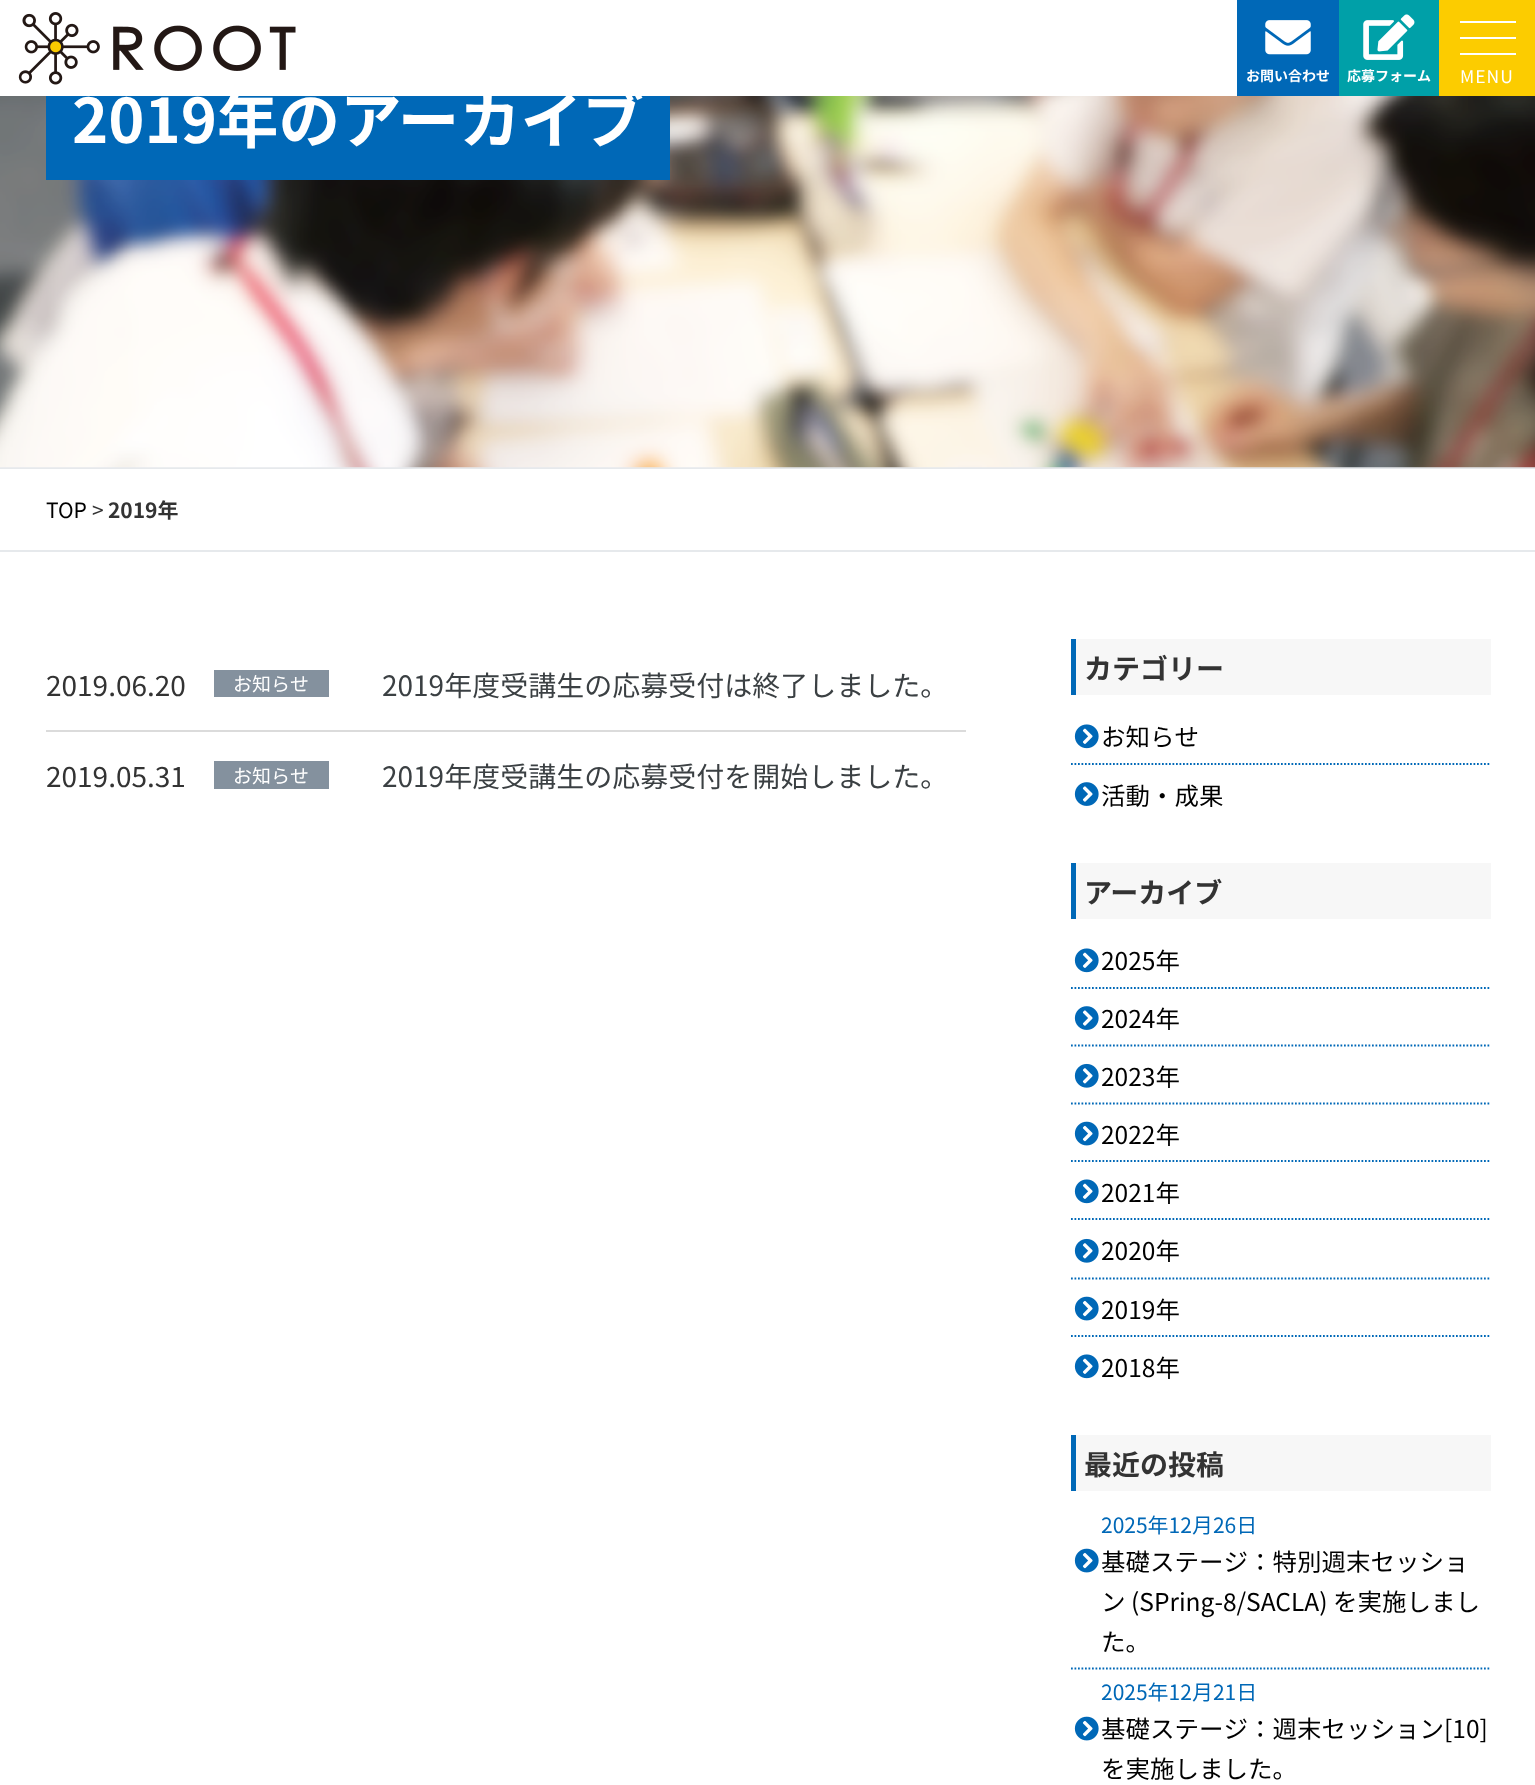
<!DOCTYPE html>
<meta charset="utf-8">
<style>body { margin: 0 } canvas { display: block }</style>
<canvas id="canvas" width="1535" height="1785"></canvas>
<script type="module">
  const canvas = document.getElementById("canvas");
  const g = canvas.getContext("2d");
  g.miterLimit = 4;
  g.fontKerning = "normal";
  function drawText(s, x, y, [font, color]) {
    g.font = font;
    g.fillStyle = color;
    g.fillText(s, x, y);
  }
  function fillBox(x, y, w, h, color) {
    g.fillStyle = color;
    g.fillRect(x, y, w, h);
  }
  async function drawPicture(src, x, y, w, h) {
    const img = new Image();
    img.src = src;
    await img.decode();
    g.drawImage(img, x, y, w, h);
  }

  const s1 = ["bold 14px Noto Sans JP", "#FFFFFF"];
  const s2 = ["17.5px Noto Sans JP", "#FFFFFF"];
  const s3 = ["bold 61.5px Noto Sans JP", "#FFFFFF"];
  const s4 = ["21px Noto Sans JP", "#000000"];
  const s5 = ["21px Noto Sans JP", "#333333"];
  const s6 = ["bold 21px Noto Sans JP", "#333333"];
  const s7 = ["28px Noto Sans JP", "#333333"];
  const s8 = ["19px Noto Sans JP", "#FFFFFF"];
  const s9 = ["28px Noto Sans JP", "#3B4043"];
  const s10 = ["bold 28px Noto Sans JP", "#333333"];
  const s11 = ["24.5px Noto Sans JP", "#000000"];
  const s12 = ["21px Noto Sans JP", "#0068B7"];

  fillBox(0, 0, 1535, 1785, "#FFFFFF");
  await drawPicture("pic1.png", 18, 12, 278, 73);
  fillBox(1237, 0, 102, 96, "#0068B7");
  await drawPicture("pic2.png", 1265, 20, 46, 35);
  drawText("お問い合わせ", 1246, 81, s1);
  fillBox(1339, 0, 100, 96, "#00A0A8");
  await drawPicture("pic3.png", 1363, 14, 52, 46);
  drawText("応募フォーム", 1347, 81, s1);
  fillBox(1439, 0, 96, 96, "#FCCC00");
  fillBox(1460, 21, 56, 2, "#FFFFFF");
  fillBox(1460, 37, 56, 2, "#FFFFFF");
  fillBox(1460, 53, 56, 2, "#FFFFFF");
  g.letterSpacing = "1px";
  drawText("MENU", 1460, 83, s2);
  fillBox(0, 467, 1535, 2, "#E6E9EC");
  await drawPicture("pic4.png", 0, 96, 1535, 372);
  fillBox(46, 96, 624, 84, "#0068B7");
  g.letterSpacing = "0px";
  drawText("2019年のアーカイブ", 72, 143, s3);
  fillBox(0, 550, 1535, 2, "#E6E9EC");
  drawText("TOP", 46, 518, s4);
  drawText(">", 92, 518, s5);
  drawText("2019年", 108, 518, s6);
  drawText("2019.06.20", 46, 696, s7);
  fillBox(214, 670, 115, 27, "#84919E");
  drawText("お知らせ", 233, 691, s8);
  drawText("2019年度受講生の応募受付は終了しました。", 382, 696, s9);
  fillBox(46, 730, 920, 2, "#DBDBDB");
  drawText("2019.05.31", 46, 787, s7);
  fillBox(214, 761, 115, 28, "#84919E");
  drawText("お知らせ", 233, 783, s8);
  drawText("2019年度受講生の応募受付を開始しました。", 382, 787, s9);
  fillBox(1076, 639, 415, 56, "#F7F7F7");
  fillBox(1071, 639, 5, 56, "#0068B7");
  drawText("カテゴリー", 1084, 679, s10);
  await drawPicture("pic5.png", 1074, 724, 25, 25);
  drawText("お知らせ", 1101, 746, s11);
  g.beginPath();
  g.moveTo(1071, 764);
  g.lineTo(1491, 764);
  g.strokeStyle = "#0068B7";
  g.lineWidth = 1.8;
  g.setLineDash([1.75, 1.75]);
  g.stroke();
  await drawPicture("pic6.png", 1074, 782, 25, 24);
  drawText("活動・成果", 1101, 805, s11);
  fillBox(1076, 863, 415, 56, "#F7F7F7");
  fillBox(1071, 863, 5, 56, "#0068B7");
  drawText("アーカイブ", 1084, 903, s10);
  await drawPicture("pic5.png", 1074, 948, 25, 25);
  drawText("2025年", 1101, 970, s11);
  g.beginPath();
  g.moveTo(1071, 988);
  g.lineTo(1491, 988);
  g.stroke();
  await drawPicture("pic6.png", 1074, 1006, 25, 24);
  drawText("2024年", 1101, 1028, s11);
  g.beginPath();
  g.moveTo(1071, 1045.5);
  g.lineTo(1491, 1045.5);
  g.stroke();
  await drawPicture("pic7.png", 1074, 1063, 25, 25);
  drawText("2023年", 1101, 1086, s11);
  g.beginPath();
  g.moveTo(1071, 1103.5);
  g.lineTo(1491, 1103.5);
  g.stroke();
  await drawPicture("pic8.png", 1074, 1121, 25, 25);
  drawText("2022年", 1101, 1144, s11);
  g.beginPath();
  g.moveTo(1071, 1161);
  g.lineTo(1491, 1161);
  g.stroke();
  await drawPicture("pic5.png", 1074, 1179, 25, 25);
  drawText("2021年", 1101, 1202, s11);
  g.beginPath();
  g.moveTo(1071, 1219);
  g.lineTo(1491, 1219);
  g.stroke();
  await drawPicture("pic7.png", 1074, 1238, 25, 25);
  drawText("2020年", 1101, 1260, s11);
  g.beginPath();
  g.moveTo(1071, 1278.5);
  g.lineTo(1491, 1278.5);
  g.stroke();
  await drawPicture("pic8.png", 1074, 1296, 25, 25);
  drawText("2019年", 1101, 1319, s11);
  g.beginPath();
  g.moveTo(1071, 1336);
  g.lineTo(1491, 1336);
  g.stroke();
  await drawPicture("pic5.png", 1074, 1354, 25, 25);
  drawText("2018年", 1101, 1377, s11);
  fillBox(1076, 1435, 415, 56, "#F7F7F7");
  fillBox(1071, 1435, 5, 56, "#0068B7");
  drawText("最近の投稿", 1084, 1475, s10);
  drawText("2025年12月26日", 1101, 1533, s12);
  await drawPicture("pic8.png", 1074, 1548, 25, 25);
  drawText("基礎ステージ：特別週末セッショ", 1101, 1571, s11);
  drawText("ン (SPring-8/SACLA) を実施しまし", 1101, 1611, s11);
  drawText("た。", 1101, 1651, s11);
  g.beginPath();
  g.moveTo(1071, 1668.5);
  g.lineTo(1491, 1668.5);
  g.stroke();
  drawText("2025年12月21日", 1101, 1700, s12);
  await drawPicture("pic8.png", 1074, 1716, 25, 25);
  drawText("基礎ステージ：週末セッション[10]", 1101, 1738, s11);
  drawText("を実施しました。", 1101, 1778, s11);
</script>
